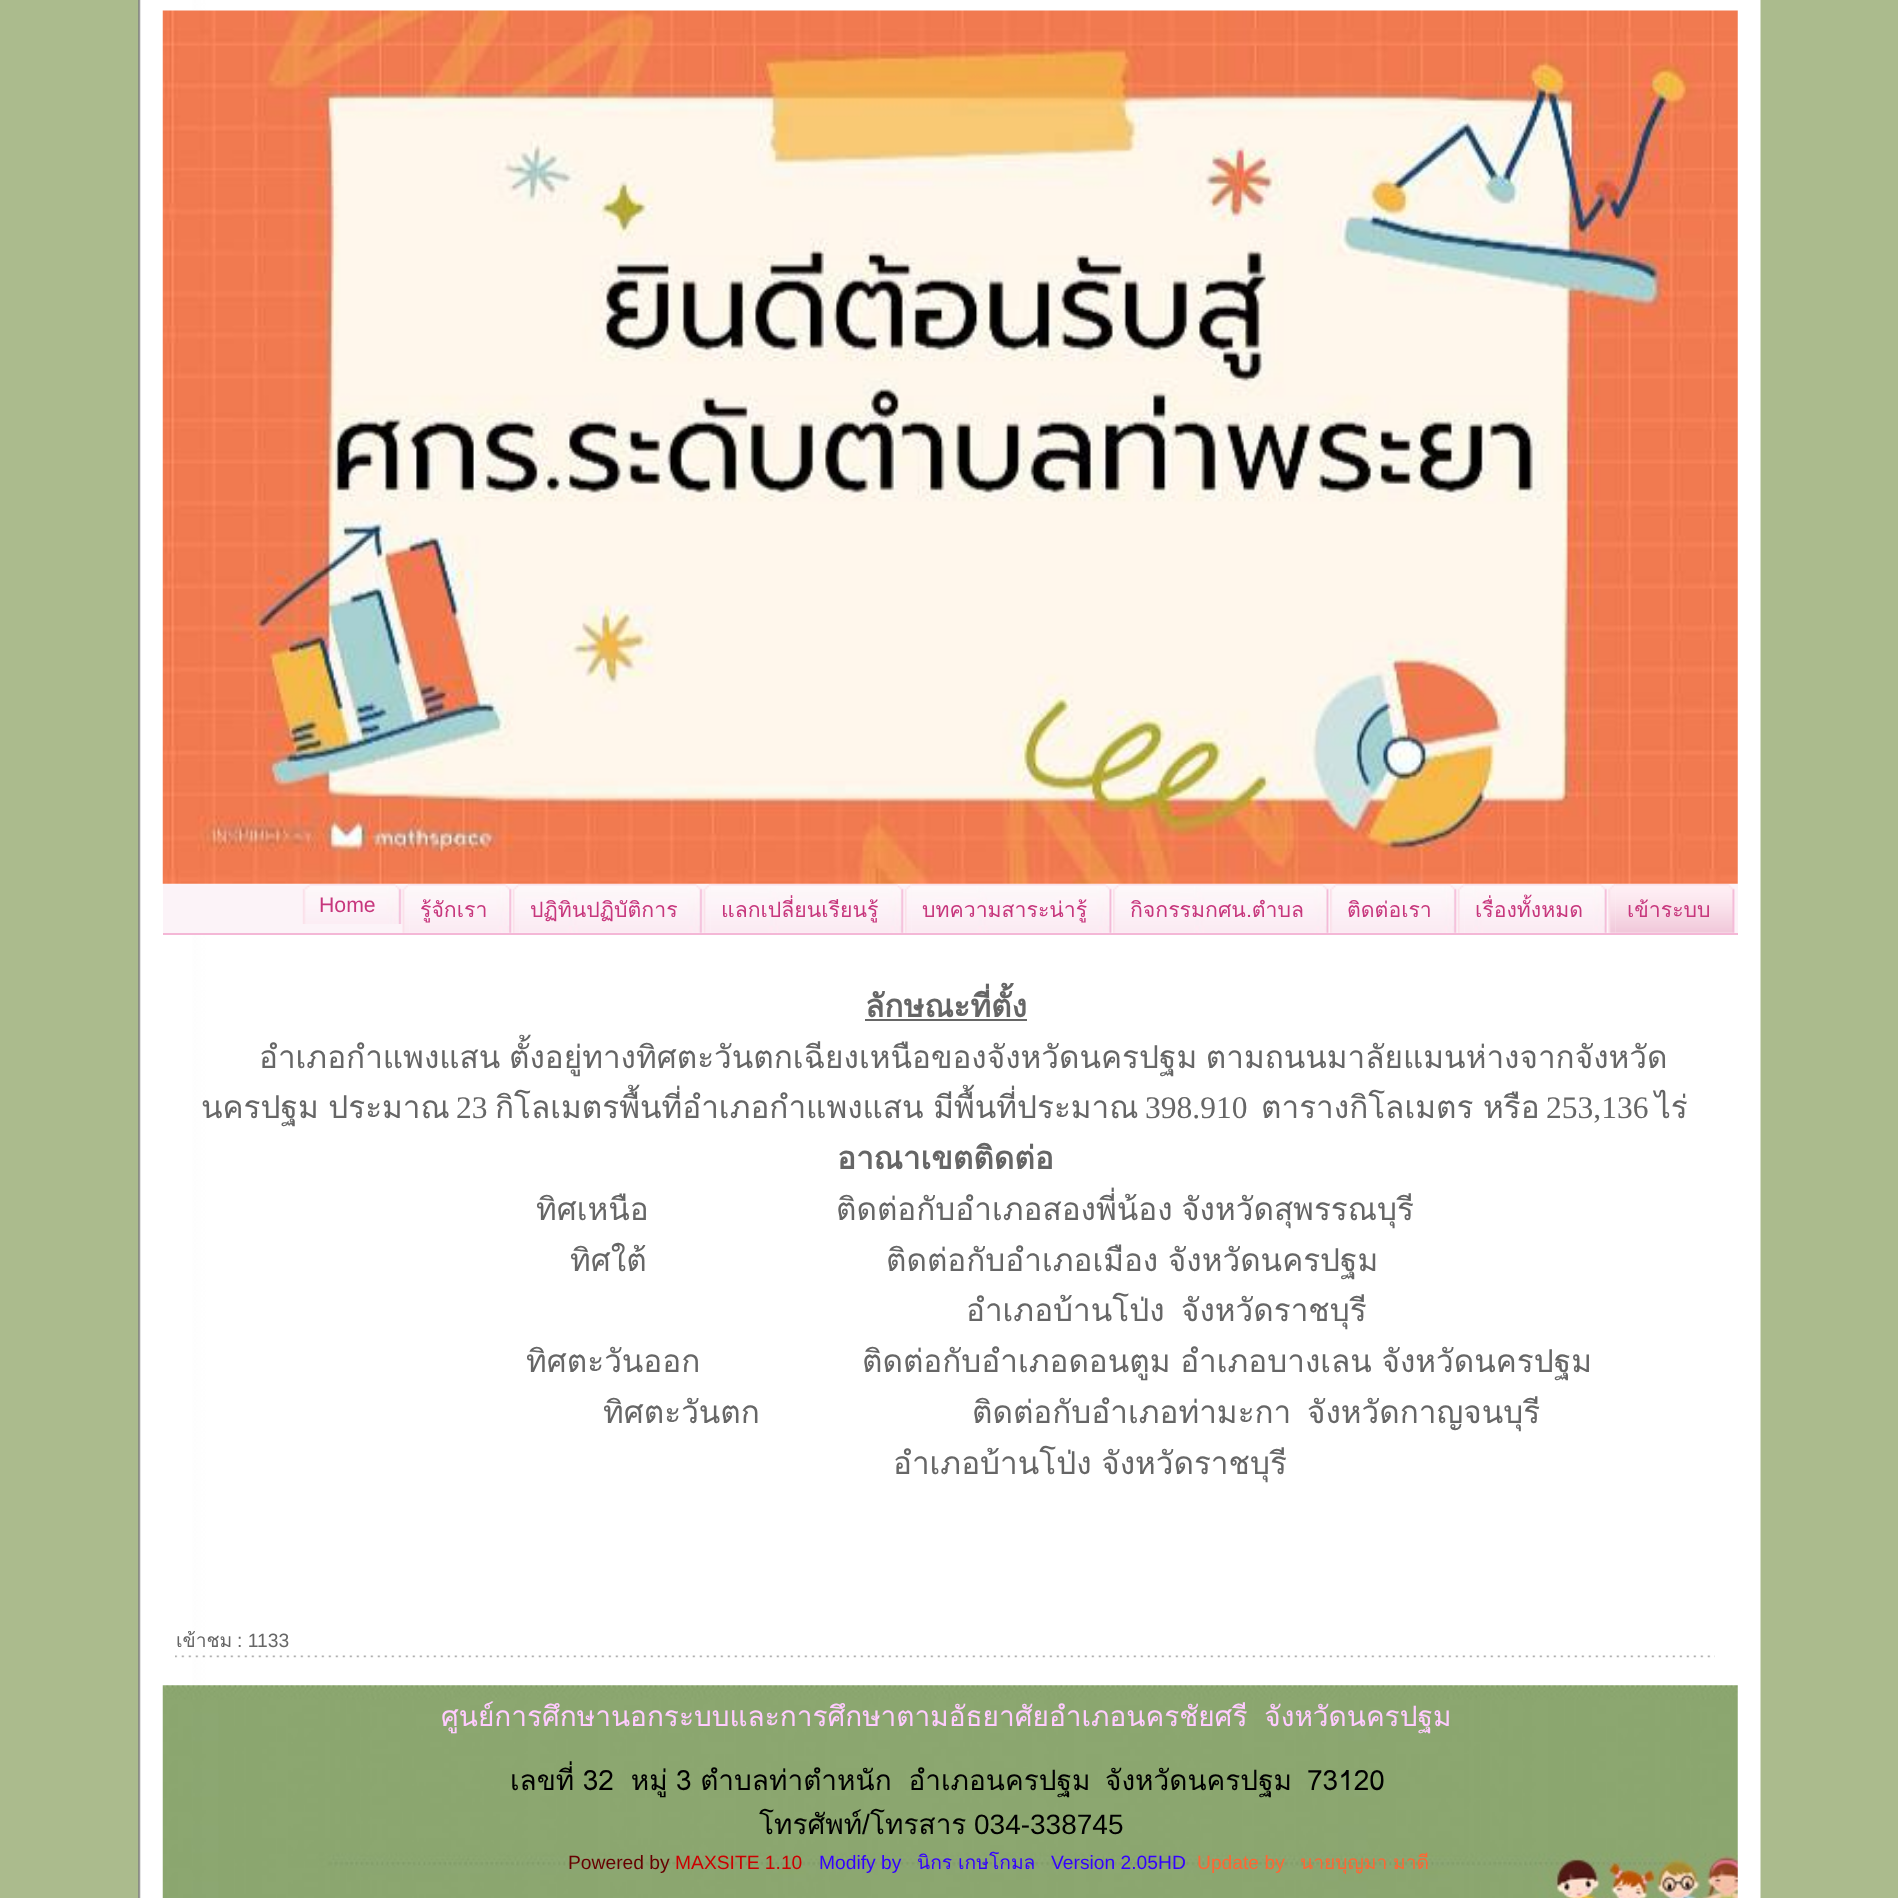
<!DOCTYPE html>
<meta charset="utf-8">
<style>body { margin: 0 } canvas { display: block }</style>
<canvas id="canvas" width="1898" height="1898"></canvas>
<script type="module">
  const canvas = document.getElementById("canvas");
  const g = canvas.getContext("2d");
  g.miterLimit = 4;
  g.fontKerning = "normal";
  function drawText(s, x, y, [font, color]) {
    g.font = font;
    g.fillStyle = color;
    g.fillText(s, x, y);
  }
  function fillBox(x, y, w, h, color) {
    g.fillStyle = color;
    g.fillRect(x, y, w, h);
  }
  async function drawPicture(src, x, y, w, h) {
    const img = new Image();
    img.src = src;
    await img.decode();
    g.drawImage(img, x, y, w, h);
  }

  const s1 = ["21.25px Liberation Sans", "#C7377D"];
  const s2 = ["21.25px Loma", "#C7377D"];
  const s3 = ["bold 31.5px Loma", "#666666"];
  const s4 = ["31.5px Loma", "#666666"];
  const s5 = ["31.5px Liberation Serif", "#666666"];
  const s6 = ["19.25px Loma", "#666666"];
  const s7 = ["19.25px Liberation Sans", "#666666"];
  const s8 = ["28px Loma", "#FFCCFF"];
  const s9 = ["28px Loma", "#000000"];
  const s10 = ["28px Liberation Sans", "#000000"];
  const s11 = ["19.25px Liberation Sans", "#660000"];
  const s12 = ["19.25px Liberation Sans", "#CC0000"];
  const s13 = ["19.25px Liberation Sans", "#3300FF"];
  const s14 = ["19.25px Loma", "#3300FF"];
  const s15 = ["19.25px Liberation Sans", "#FF6633"];
  const s16 = ["19.25px Loma", "#FF6633"];

  fillBox(0, 0, 1898, 1898, "#ABBB8D");
  await drawPicture("pic1.png", 138, 0, 1623, 1898);
  fillBox(163, 884, 1575, 49, "#FCF3F8");
  await drawPicture("pic3.png", 302, 883, 10, 41);
  await drawPicture("pic4.png", 310, 883, 92, 41);
  await drawPicture("pic5.png", 402, 883, 8, 50);
  await drawPicture("pic6.png", 409, 883, 103, 50);
  await drawPicture("pic7.png", 512, 883, 8, 50);
  await drawPicture("pic8.png", 520, 883, 183, 50);
  await drawPicture("pic5.png", 703, 883, 8, 50);
  await drawPicture("pic9.png", 710, 883, 194, 50);
  await drawPicture("pic10.png", 904, 883, 8, 50);
  await drawPicture("pic11.png", 912, 883, 200, 50);
  await drawPicture("pic12.png", 1113, 883, 7, 50);
  await drawPicture("pic13.png", 1120, 883, 209, 50);
  await drawPicture("pic12.png", 1330, 883, 7, 50);
  await drawPicture("pic14.png", 1337, 883, 120, 50);
  await drawPicture("pic10.png", 1457, 883, 8, 50);
  await drawPicture("pic15.png", 1465, 883, 142, 50);
  await drawPicture("pic16.png", 1608, 883, 8, 50);
  await drawPicture("pic17.png", 1615, 883, 120, 50);
  await drawPicture("pic2.png", 162, 10, 1576, 874);
  fillBox(163, 933, 1575, 2, "#F4B7D6");
  drawText("Home", 319, 912, s1);
  drawText("รู้จักเรา", 420, 917, s2);
  drawText("ปฏิทินปฏิบัติการ", 530, 917, s2);
  drawText("แลกเปลี่ยนเรียนรู้", 721, 917, s2);
  drawText("บทความสาระน่ารู้", 922, 917, s2);
  drawText("กิจกรรมกศน.ตำบล", 1130, 917, s2);
  drawText("ติดต่อเรา", 1347, 917, s2);
  drawText("เรื่องทั้งหมด", 1475, 917, s2);
  drawText("เข้าระบบ", 1627, 917, s2);
  drawText("ลักษณะที่ตั้ง", 865, 1017, s3);
  fillBox(865, 1019, 162, 2, "#666666");
  g.wordSpacing = "-2px";
  drawText("อำเภอกำแพงแสน ตั้งอยู่ทางทิศตะวันตกเฉียงเหนือของจังหวัดนครปฐม ตามถนนมาลัยแมนห่างจากจังหวัด", 259, 1068, s4);
  g.wordSpacing = "-1px";
  drawText("นครปฐม ประมาณ", 201, 1118, s4);
  g.wordSpacing = "0px";
  drawText("23", 456, 1118, s5);
  g.wordSpacing = "-1px";
  drawText("กิโลเมตรพื้นที่อำเภอกำแพงแสน มีพื้นที่ประมาณ", 495, 1118, s4);
  g.wordSpacing = "0px";
  drawText("398.910", 1145, 1118, s5);
  g.wordSpacing = "-1px";
  drawText("ตารางกิโลเมตร หรือ", 1261, 1118, s4);
  g.wordSpacing = "0px";
  drawText("253,136", 1546, 1118, s5);
  drawText("ไร่", 1655, 1118, s4);
  drawText("อาณาเขตติดต่อ", 837, 1169, s3);
  drawText("ทิศเหนือ", 536, 1220, s4);
  g.wordSpacing = "-2px";
  drawText("ติดต่อกับอำเภอสองพี่น้อง จังหวัดสุพรรณบุรี", 836, 1220, s4);
  g.wordSpacing = "0px";
  drawText("ทิศใต้", 570, 1271, s4);
  g.wordSpacing = "-1px";
  drawText("ติดต่อกับอำเภอเมือง จังหวัดนครปฐม", 886, 1271, s4);
  g.wordSpacing = "0px";
  drawText("อำเภอบ้านโป่ง", 966, 1321, s4);
  drawText("จังหวัดราชบุรี", 1181, 1321, s4);
  drawText("ทิศตะวันออก", 526, 1372, s4);
  g.wordSpacing = "-1px";
  drawText("ติดต่อกับอำเภอดอนตูม อำเภอบางเลน จังหวัดนครปฐม", 862, 1372, s4);
  g.wordSpacing = "0px";
  drawText("ทิศตะวันตก", 603, 1423, s4);
  drawText("ติดต่อกับอำเภอท่ามะกา", 972, 1423, s4);
  drawText("จังหวัดกาญจนบุรี", 1307, 1423, s4);
  g.wordSpacing = "-1px";
  drawText("อำเภอบ้านโป่ง จังหวัดราชบุรี", 893, 1474, s4);
  g.wordSpacing = "0px";
  drawText("เข้าชม", 176, 1647, s6);
  drawText(": 1133", 237, 1647, s7);
  await drawPicture("pic18.png", 175, 1655, 1540, 3);
  await drawPicture("pic19.png", 162, 1685, 1576, 213);
  g.wordSpacing = "-1px";
  drawText("ศูนย์การศึกษานอกระบบและการศึกษาตามอัธยาศัยอำเภอนครชัยศรี  จังหวัดนครปฐม", 441, 1726, s8);
  drawText("เลขที่ 32  หมู่ 3 ตำบลท่าตำหนัก  อำเภอนครปฐม", 510, 1790, s9);
  drawText("จังหวัดนครปฐม", 1105, 1790, s9);
  drawText("73120", 1307, 1790, s9);
  g.wordSpacing = "0px";
  drawText("โทรศัพท์", 759, 1834, s9);
  drawText("/", 862, 1834, s10);
  drawText("โทรสาร", 870, 1834, s9);
  drawText("034-338745", 974, 1834, s10);
  drawText("Powered by", 568, 1869, s11);
  drawText("MAXSITE 1.10", 675, 1869, s12);
  drawText("Modify by", 819, 1869, s13);
  drawText("นิกร", 917, 1869, s14);
  drawText("เกษโกมล", 958, 1869, s14);
  drawText("Version 2.05HD", 1051, 1869, s13);
  drawText("Update by", 1197, 1869, s15);
  drawText("นายบุญมา", 1300, 1869, s16);
  drawText("มาดี", 1393, 1869, s16);
</script>
